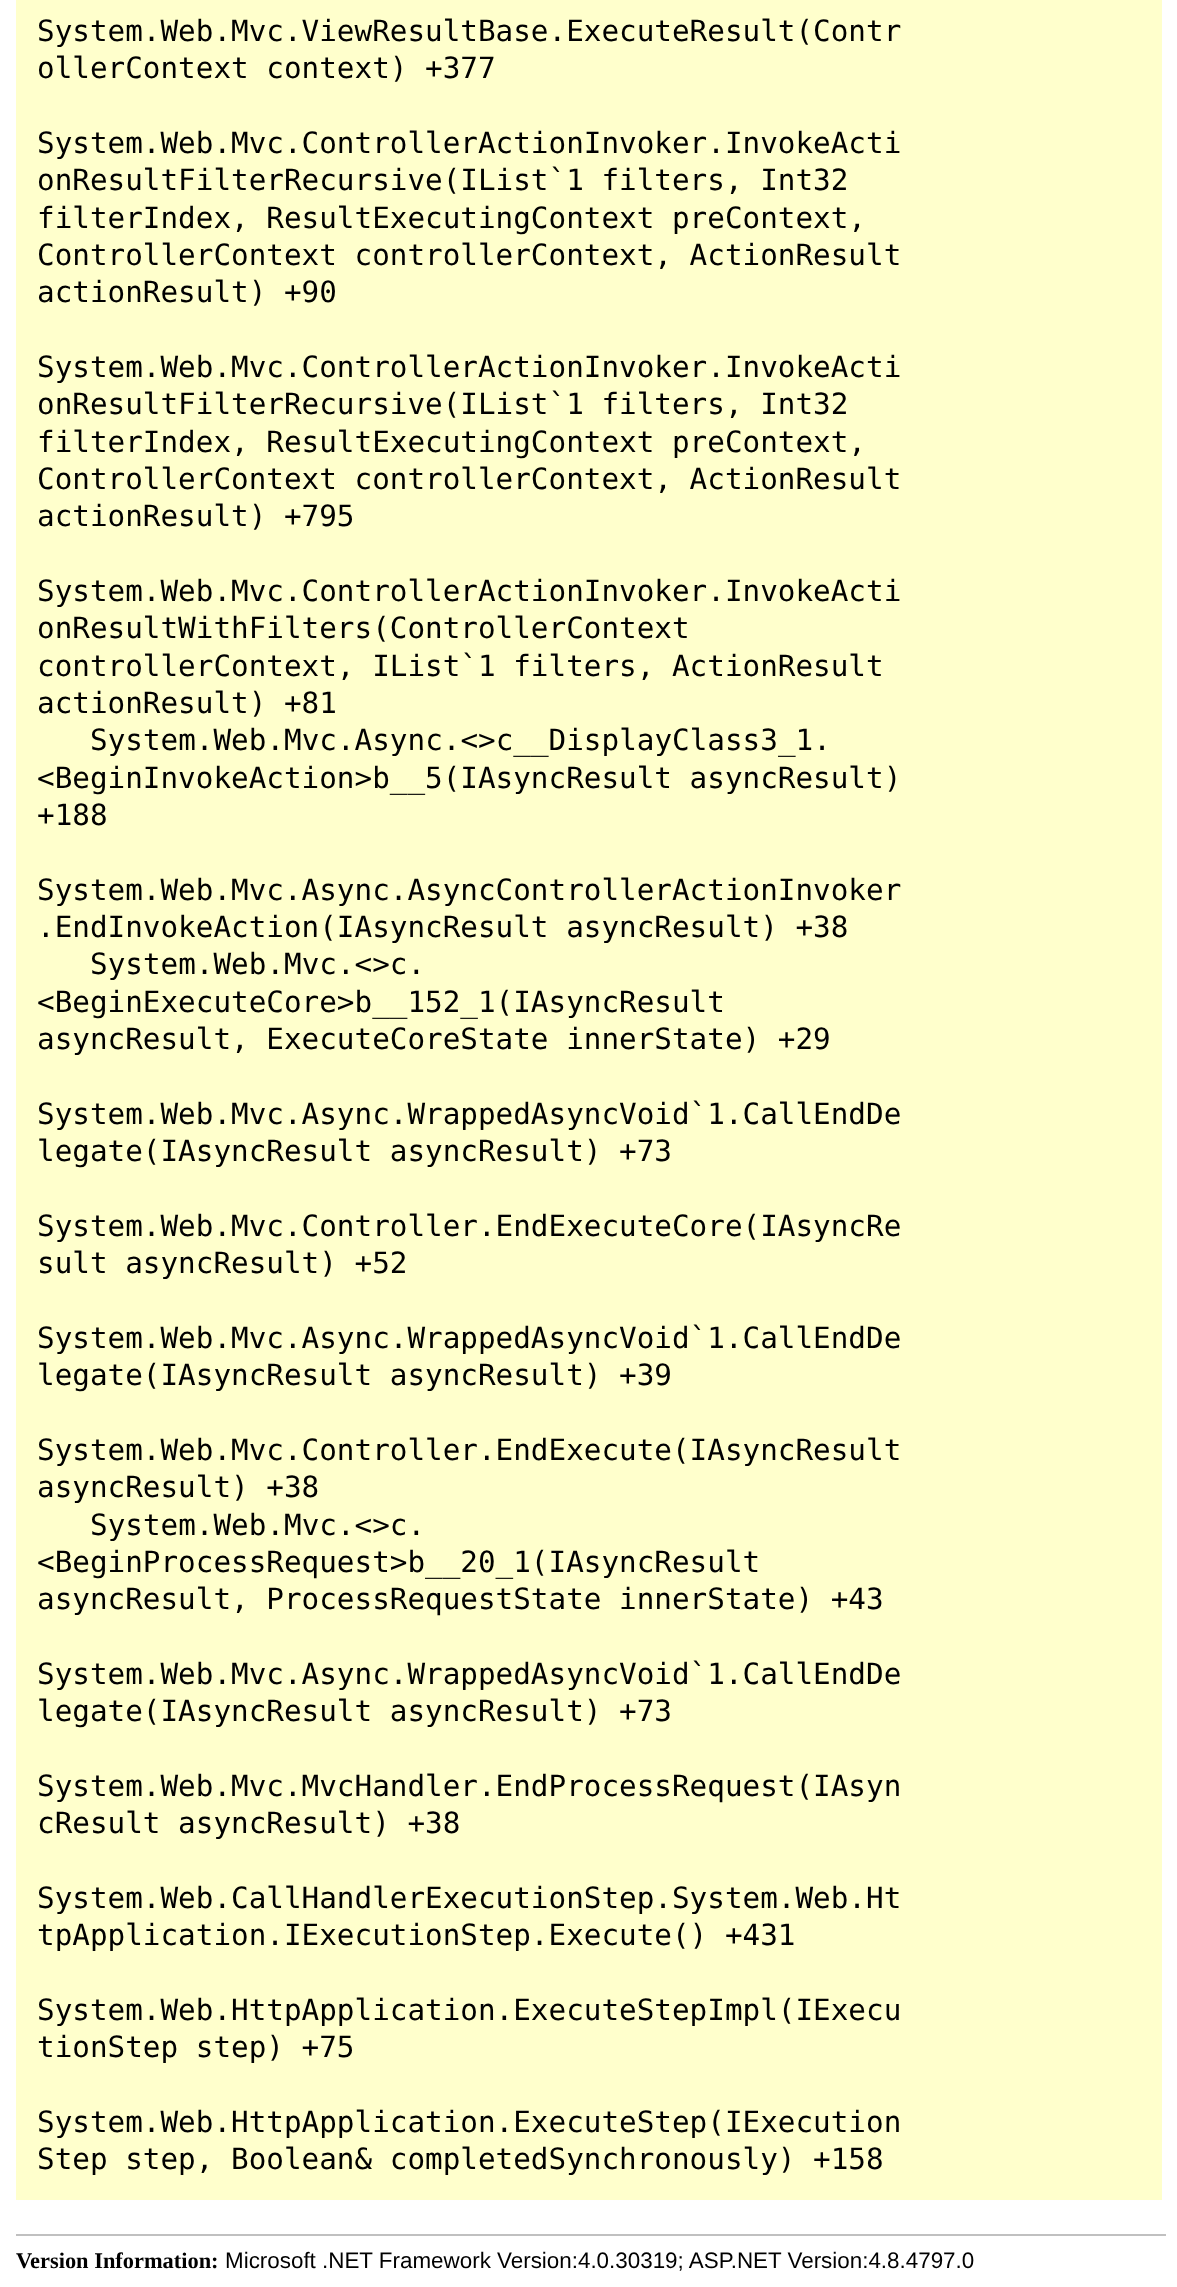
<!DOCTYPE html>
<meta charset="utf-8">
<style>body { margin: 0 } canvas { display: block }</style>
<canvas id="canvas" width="1177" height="2287"></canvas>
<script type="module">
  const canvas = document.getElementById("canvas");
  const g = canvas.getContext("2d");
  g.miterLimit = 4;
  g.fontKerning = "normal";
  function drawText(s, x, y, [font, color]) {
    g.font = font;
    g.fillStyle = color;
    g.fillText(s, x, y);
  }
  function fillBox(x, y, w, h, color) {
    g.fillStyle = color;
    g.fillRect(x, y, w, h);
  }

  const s1 = ["29.3px DejaVu Sans Mono", "#000000"];
  const s2 = ["bold 22.4px Liberation Serif", "#000000"];
  const s3 = ["22.4px Liberation Sans", "#000000"];

  fillBox(0, 0, 1177, 2287, "#FFFFFF");
  fillBox(16, 0, 1146, 2200, "#FFFFCC");
  drawText("System.Web.Mvc.ViewResultBase.ExecuteResult(Contr", 37, 41, s1);
  drawText("ollerContext context) +377", 37, 78, s1);
  drawText("System.Web.Mvc.ControllerActionInvoker.InvokeActi", 37, 153, s1);
  drawText("onResultFilterRecursive(IList`1 filters, Int32", 37, 190, s1);
  drawText("filterIndex, ResultExecutingContext preContext,", 37, 228, s1);
  drawText("ControllerContext controllerContext, ActionResult", 37, 265, s1);
  drawText("actionResult) +90", 37, 302, s1);
  drawText("System.Web.Mvc.ControllerActionInvoker.InvokeActi", 37, 377, s1);
  drawText("onResultFilterRecursive(IList`1 filters, Int32", 37, 414, s1);
  drawText("filterIndex, ResultExecutingContext preContext,", 37, 452, s1);
  drawText("ControllerContext controllerContext, ActionResult", 37, 489, s1);
  drawText("actionResult) +795", 37, 526, s1);
  drawText("System.Web.Mvc.ControllerActionInvoker.InvokeActi", 37, 601, s1);
  drawText("onResultWithFilters(ControllerContext", 37, 638, s1);
  drawText("controllerContext, IList`1 filters, ActionResult", 37, 676, s1);
  drawText("actionResult) +81", 37, 713, s1);
  drawText("System.Web.Mvc.Async.<>c__DisplayClass3_1.", 90, 750, s1);
  drawText("<BeginInvokeAction>b__5(IAsyncResult asyncResult)", 37, 788, s1);
  drawText("+188", 37, 825, s1);
  drawText("System.Web.Mvc.Async.AsyncControllerActionInvoker", 37, 900, s1);
  drawText(".EndInvokeAction(IAsyncResult asyncResult) +38", 37, 937, s1);
  drawText("System.Web.Mvc.<>c.", 90, 974, s1);
  drawText("<BeginExecuteCore>b__152_1(IAsyncResult", 37, 1012, s1);
  drawText("asyncResult, ExecuteCoreState innerState) +29", 37, 1049, s1);
  drawText("System.Web.Mvc.Async.WrappedAsyncVoid`1.CallEndDe", 37, 1124, s1);
  drawText("legate(IAsyncResult asyncResult) +73", 37, 1161, s1);
  drawText("System.Web.Mvc.Controller.EndExecuteCore(IAsyncRe", 37, 1236, s1);
  drawText("sult asyncResult) +52", 37, 1273, s1);
  drawText("System.Web.Mvc.Async.WrappedAsyncVoid`1.CallEndDe", 37, 1348, s1);
  drawText("legate(IAsyncResult asyncResult) +39", 37, 1385, s1);
  drawText("System.Web.Mvc.Controller.EndExecute(IAsyncResult", 37, 1460, s1);
  drawText("asyncResult) +38", 37, 1497, s1);
  drawText("System.Web.Mvc.<>c.", 90, 1535, s1);
  drawText("<BeginProcessRequest>b__20_1(IAsyncResult", 37, 1572, s1);
  drawText("asyncResult, ProcessRequestState innerState) +43", 37, 1609, s1);
  drawText("System.Web.Mvc.Async.WrappedAsyncVoid`1.CallEndDe", 37, 1684, s1);
  drawText("legate(IAsyncResult asyncResult) +73", 37, 1721, s1);
  drawText("System.Web.Mvc.MvcHandler.EndProcessRequest(IAsyn", 37, 1796, s1);
  drawText("cResult asyncResult) +38", 37, 1833, s1);
  drawText("System.Web.CallHandlerExecutionStep.System.Web.Ht", 37, 1908, s1);
  drawText("tpApplication.IExecutionStep.Execute() +431", 37, 1945, s1);
  drawText("System.Web.HttpApplication.ExecuteStepImpl(IExecu", 37, 2020, s1);
  drawText("tionStep step) +75", 37, 2057, s1);
  drawText("System.Web.HttpApplication.ExecuteStep(IExecution", 37, 2132, s1);
  drawText("Step step, Boolean& completedSynchronously) +158", 37, 2169, s1);
  fillBox(16, 2234, 1150, 2, "#C0C0C0");
  drawText("Version Information:", 16, 2268, s2);
  drawText("Microsoft .NET Framework Version:4.0.30319; ASP.NET Version:4.8.4797.0", 225, 2268, s3);
</script>
